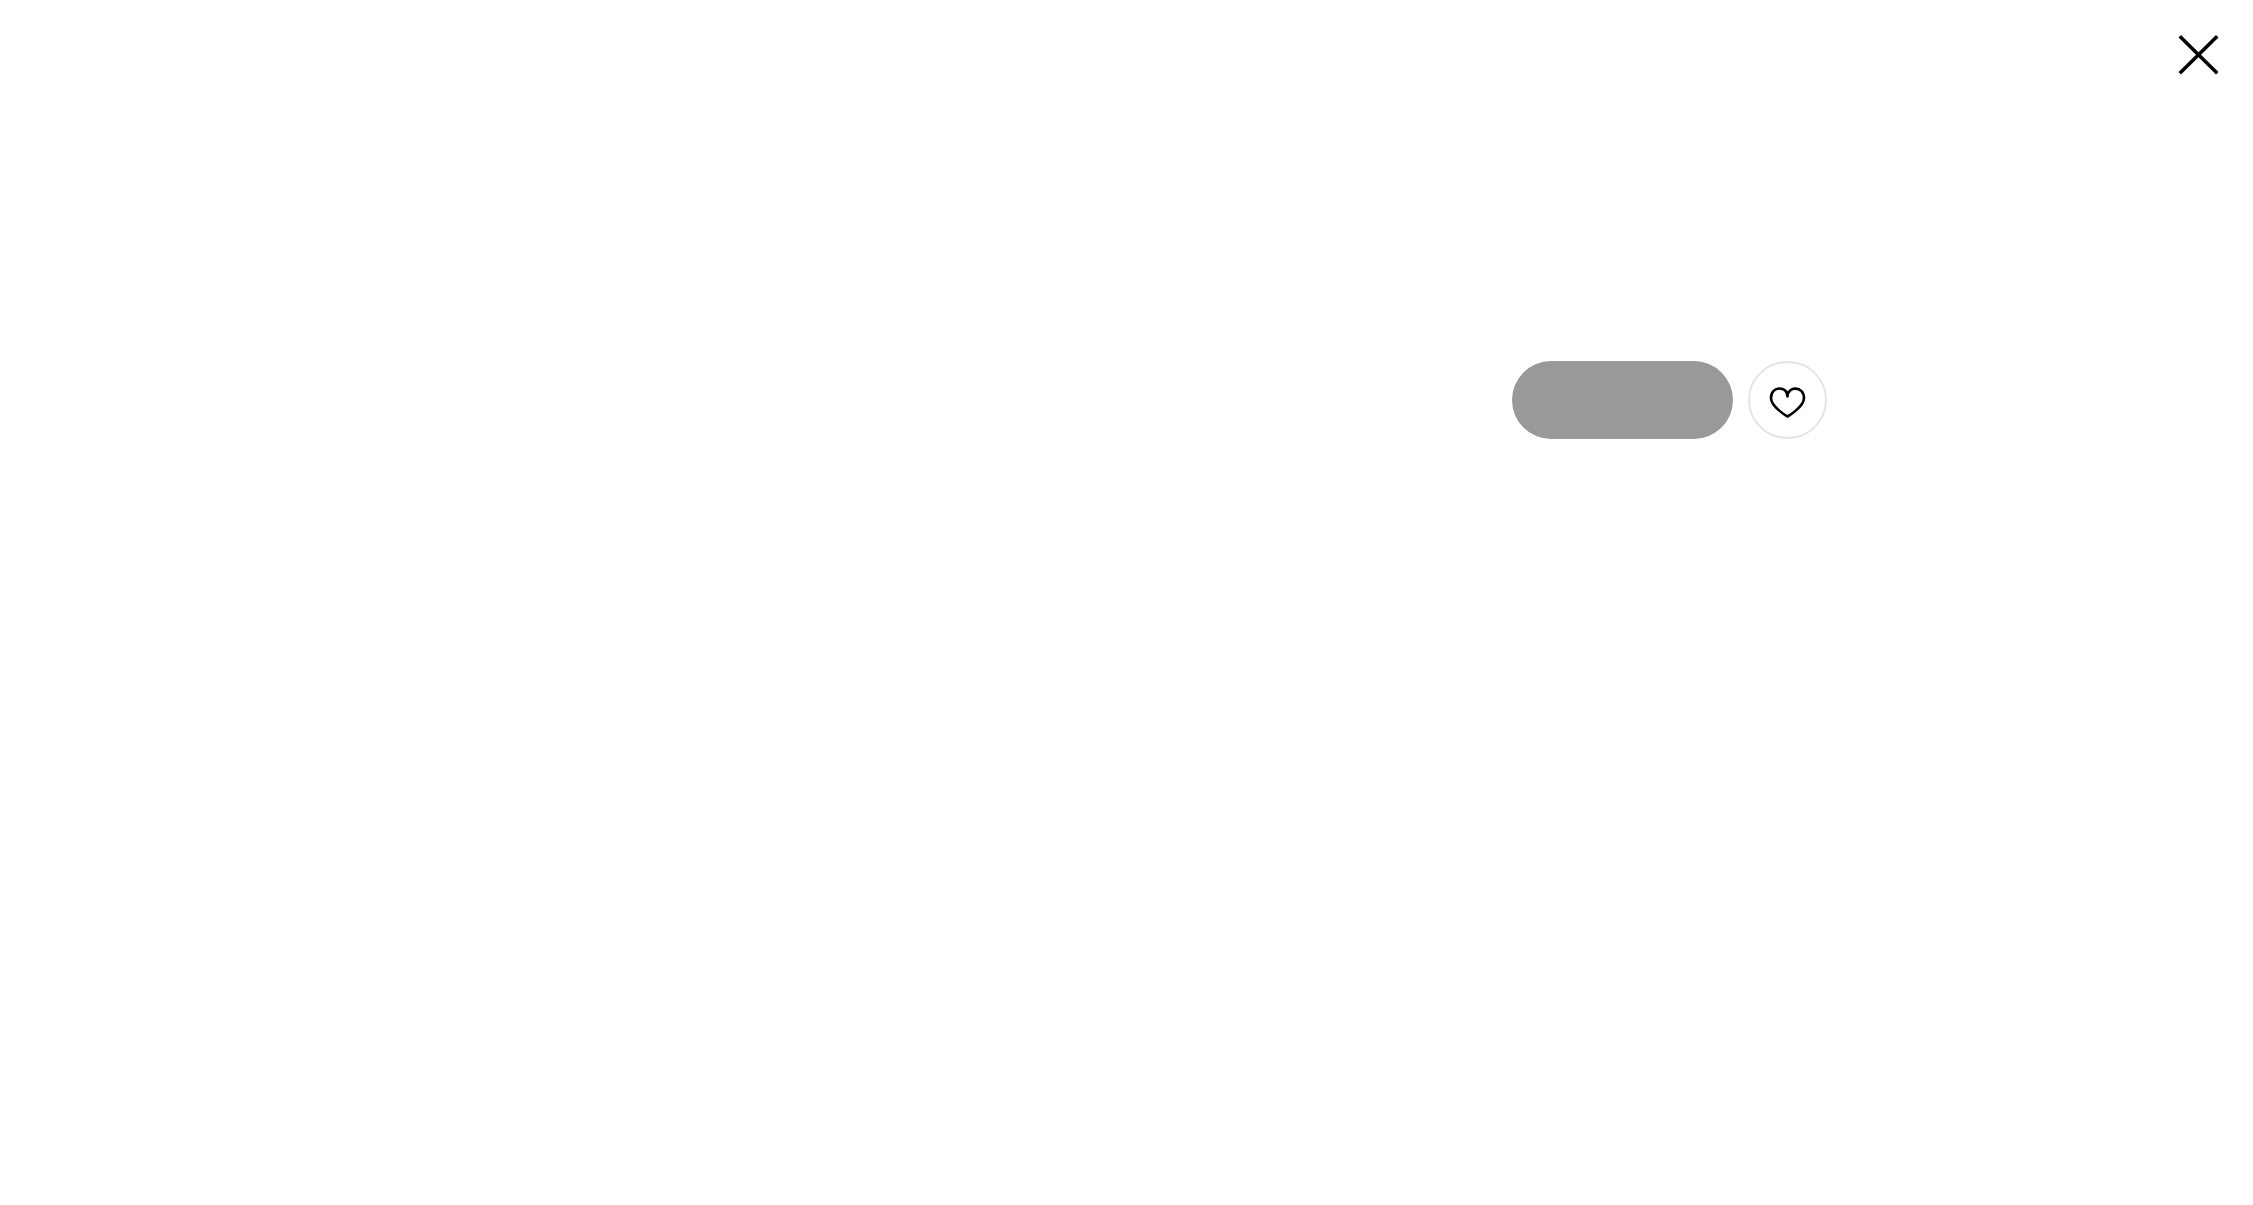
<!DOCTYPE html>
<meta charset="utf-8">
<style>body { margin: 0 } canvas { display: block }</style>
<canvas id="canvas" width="2253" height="1205"></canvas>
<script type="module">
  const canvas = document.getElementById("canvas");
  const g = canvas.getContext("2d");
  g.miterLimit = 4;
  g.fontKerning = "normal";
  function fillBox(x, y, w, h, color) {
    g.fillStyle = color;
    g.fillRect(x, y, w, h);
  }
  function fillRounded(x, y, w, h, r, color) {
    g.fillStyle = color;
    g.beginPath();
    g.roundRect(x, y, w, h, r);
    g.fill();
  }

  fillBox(0, 0, 2253, 1205, "#FFFFFF");
  g.fillStyle = "#000000";
  g.beginPath();
  g.moveTo(2178.5, 37.5);
  g.lineTo(2181, 35);
  g.lineTo(2218.5, 72);
  g.lineTo(2216, 74.5);
  g.closePath();
  g.fill("evenodd");
  g.beginPath();
  g.moveTo(2216, 35);
  g.lineTo(2218.5, 37.5);
  g.lineTo(2181, 74.5);
  g.lineTo(2178.5, 72);
  g.closePath();
  g.fill("evenodd");
  fillRounded(1512, 361, 221, 78, 39, "#999999");
  g.beginPath();
  g.roundRect(1749, 362, 77, 76, 38);
  g.strokeStyle = "#E4E4E4";
  g.lineWidth = 2;
  g.stroke();
  g.beginPath();
  g.moveTo(1804, 398);
  g.bezierCurveTo(1804, 407, 1787.5, 416.5, 1787.5, 416.5);
  g.bezierCurveTo(1787.5, 416.5, 1771, 407, 1771, 398);
  g.bezierCurveTo(1771, 385.5, 1787.5, 385.5, 1787.5, 396.5);
  g.bezierCurveTo(1787.5, 385.5, 1804, 386, 1804, 398);
  g.closePath();
  g.strokeStyle = "#000000";
  g.lineWidth = 2.6;
  g.lineJoin = "round";
  g.stroke();
</script>
